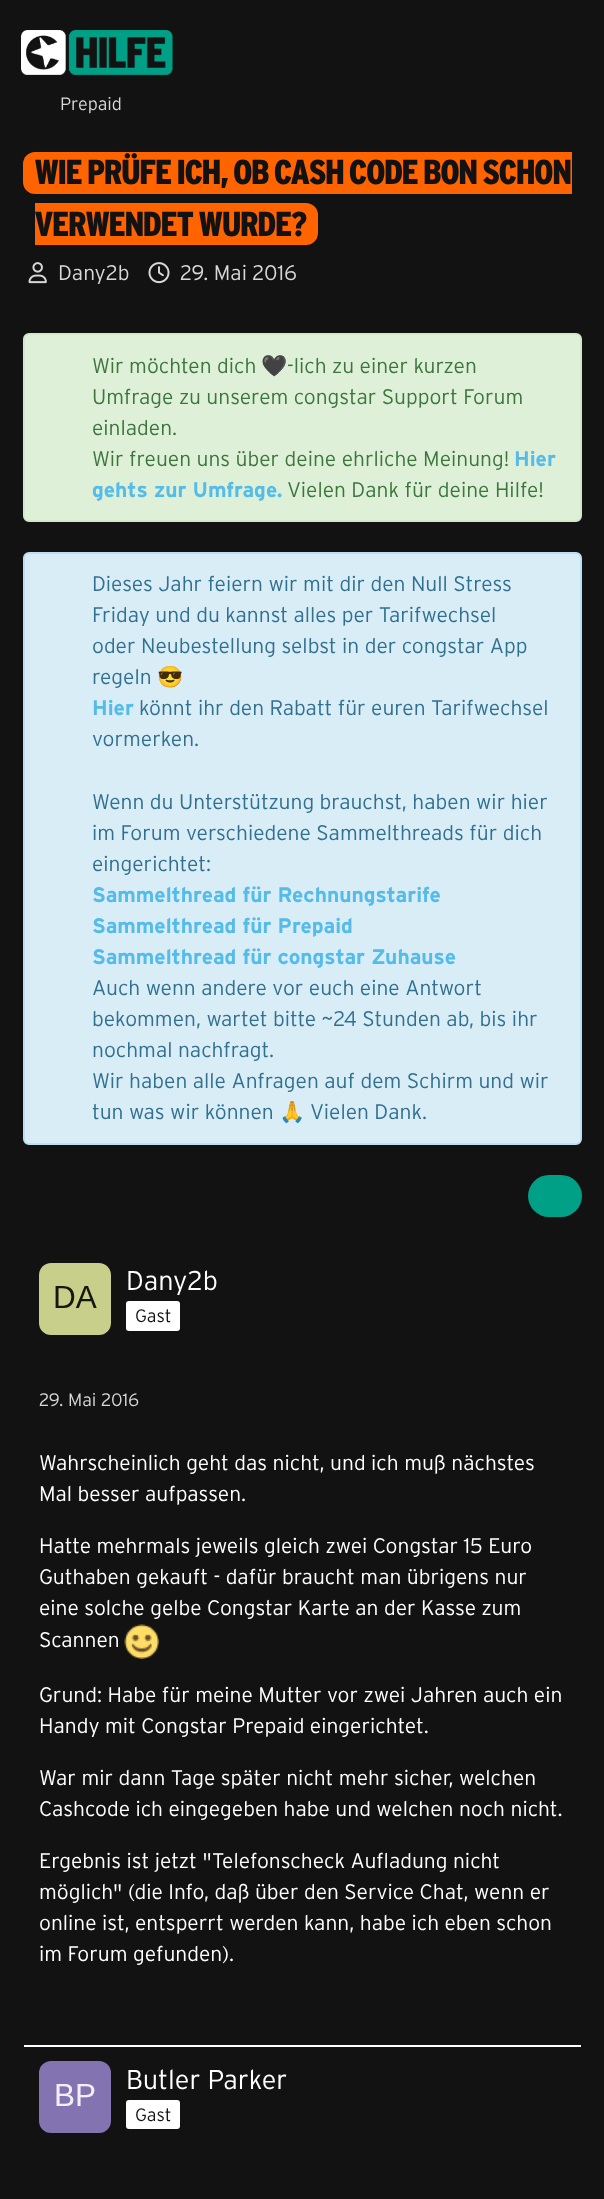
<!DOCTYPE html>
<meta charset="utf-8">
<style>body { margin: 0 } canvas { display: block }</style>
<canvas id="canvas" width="604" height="2199"></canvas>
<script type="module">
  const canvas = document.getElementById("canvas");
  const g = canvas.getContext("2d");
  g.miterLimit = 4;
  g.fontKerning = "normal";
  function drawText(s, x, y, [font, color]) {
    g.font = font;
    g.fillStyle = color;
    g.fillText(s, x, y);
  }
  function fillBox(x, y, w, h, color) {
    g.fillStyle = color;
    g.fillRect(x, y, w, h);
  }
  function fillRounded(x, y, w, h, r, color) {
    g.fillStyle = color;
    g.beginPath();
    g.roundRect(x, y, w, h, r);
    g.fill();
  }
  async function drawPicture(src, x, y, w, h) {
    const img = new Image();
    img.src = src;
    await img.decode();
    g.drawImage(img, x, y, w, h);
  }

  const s1 = ["300 18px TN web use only", "#D8D8D8"];
  const s2 = ["900 34.5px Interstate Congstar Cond", "#121212"];
  const s3 = ["300 21px TN web use only", "#D8D8D8"];
  const s4 = ["300 21px TN web use only", "#3C763D"];
  const s5 = ["21px Noto Color Emoji", "#3C763D"];
  const s6 = ["bold 21px TN web use only", "#55BBE9"];
  const s7 = ["300 21px TN web use only", "#31708F"];
  const s8 = ["21px Noto Color Emoji", "#31708F"];
  const s9 = ["300 27px TN web use only", "#FFFFFF"];
  const s10 = ["300 18px TN web use only", "#121212"];
  const s11 = ["300 21px TN web use only", "#FFFFFF"];

  fillBox(0, 0, 604, 2199, "#121212");
  await drawPicture("pic1.png", 21, 30, 152, 45);
  drawText("Prepaid", 60, 110, s1);
  g.fillStyle = "#FF6400";
  g.beginPath();
  g.roundRect(23, 152, 549, 42, [12, 0, 0, 12]);
  g.fill();
  drawText("WIE PRÜFE ICH, OB CASH CODE BON SCHON", 35, 184, s2);
  g.fillStyle = "#FF6400";
  g.beginPath();
  g.roundRect(35, 203, 283, 42, [0, 12, 12, 0]);
  g.fill();
  drawText("VERWENDET WURDE?", 35, 236, s2);
  await drawPicture("pic2.png", 28, 262, 19, 22);
  drawText("Dany2b", 58, 280, s3);
  await drawPicture("pic3.png", 148, 262, 22, 22);
  drawText("29. Mai 2016", 180, 280, s3);
  g.fillStyle = "#DFF0D8";
  g.beginPath();
  g.roundRect(24, 334, 557, 187, 5);
  g.fill();
  g.strokeStyle = "#D0E9C6";
  g.lineWidth = 2;
  g.stroke();
  drawText("Wir möchten dich", 92, 373, s4);
  drawText("🖤", 261, 373, s5);
  drawText("-lich zu einer kurzen", 287, 373, s4);
  drawText("Umfrage zu unserem congstar Support Forum", 92, 404, s4);
  drawText("einladen.", 92, 435, s4);
  drawText("Wir freuen uns über deine ehrliche Meinung!", 92, 466, s4);
  drawText("Hier", 514, 466, s6);
  drawText("gehts zur Umfrage.", 92, 497, s6);
  drawText("Vielen Dank für deine Hilfe!", 287, 497, s4);
  g.fillStyle = "#D9EDF7";
  g.beginPath();
  g.roundRect(24, 553, 557, 591, 5);
  g.fill();
  g.strokeStyle = "#BCDFF1";
  g.stroke();
  drawText("Dieses Jahr feiern wir mit dir den Null Stress", 92, 591, s7);
  drawText("Friday und du kannst alles per Tarifwechsel", 92, 622, s7);
  drawText("oder Neubestellung selbst in der congstar App", 92, 653, s7);
  drawText("regeln", 92, 684, s7);
  drawText("😎", 157, 684, s8);
  drawText("Hier", 92, 715, s6);
  drawText("könnt ihr den Rabatt für euren Tarifwechsel", 139, 715, s7);
  drawText("vormerken.", 92, 746, s7);
  drawText("Wenn du Unterstützung brauchst, haben wir hier", 92, 809, s7);
  drawText("im Forum verschiedene Sammelthreads für dich", 92, 840, s7);
  drawText("eingerichtet:", 92, 871, s7);
  drawText("Sammelthread für Rechnungstarife", 92, 902, s6);
  drawText("Sammelthread für Prepaid", 92, 933, s6);
  drawText("Sammelthread für congstar Zuhause", 92, 964, s6);
  drawText("Auch wenn andere vor euch eine Antwort", 92, 995, s7);
  drawText("bekommen, wartet bitte ~24 Stunden ab, bis ihr", 92, 1026, s7);
  drawText("nochmal nachfragt.", 92, 1057, s7);
  drawText("Wir haben alle Anfragen auf dem Schirm und wir", 92, 1088, s7);
  drawText("tun was wir können", 92, 1119, s7);
  drawText("🙏", 279, 1119, s8);
  drawText("Vielen Dank.", 310, 1119, s7);
  fillRounded(528, 1175, 54, 42, 21, "#00A086");
  await drawPicture("pic4.png", 39, 1263, 72, 72);
  drawText("Dany2b", 126, 1290, s9);
  fillRounded(126, 1301, 54, 30, 3, "#FFFFFF");
  drawText("Gast", 135, 1322, s10);
  drawText("29. Mai 2016", 39, 1406, s1);
  drawText("Wahrscheinlich geht das nicht, und ich muß nächstes", 39, 1470, s11);
  drawText("Mal besser aufpassen.", 39, 1501, s11);
  drawText("Hatte mehrmals jeweils gleich zwei Congstar 15 Euro", 39, 1553, s11);
  drawText("Guthaben gekauft - dafür braucht man übrigens nur", 39, 1584, s11);
  drawText("eine solche gelbe Congstar Karte an der Kasse zum", 39, 1615, s11);
  drawText("Scannen", 39, 1647, s11);
  await drawPicture("pic5.png", 124, 1624, 35, 35);
  drawText("Grund: Habe für meine Mutter vor zwei Jahren auch ein", 39, 1702, s11);
  drawText("Handy mit Congstar Prepaid eingerichtet.", 39, 1733, s11);
  drawText("War mir dann Tage später nicht mehr sicher, welchen", 39, 1785, s11);
  drawText("Cashcode ich eingegeben habe und welchen noch nicht.", 39, 1816, s11);
  drawText("Ergebnis ist jetzt \"Telefonscheck Aufladung nicht", 39, 1868, s11);
  drawText("möglich\" (die Info, daß über den Service Chat, wenn er", 39, 1899, s11);
  drawText("online ist, entsperrt werden kann, habe ich eben schon", 39, 1930, s11);
  drawText("im Forum gefunden).", 39, 1961, s11);
  fillBox(24, 2045, 557, 2, "#FFFFFF");
  await drawPicture("pic6.png", 39, 2061, 72, 72);
  drawText("Butler Parker", 126, 2089, s9);
  fillRounded(126, 2100, 54, 29, 3, "#FFFFFF");
  drawText("Gast", 135, 2121, s10);
</script>
